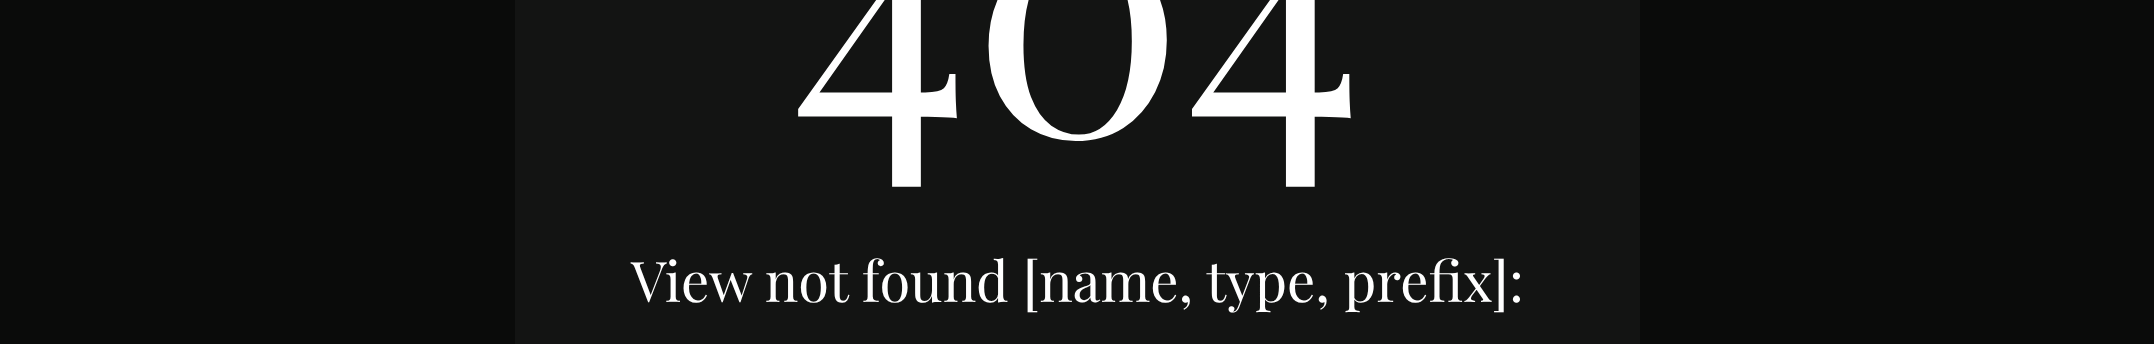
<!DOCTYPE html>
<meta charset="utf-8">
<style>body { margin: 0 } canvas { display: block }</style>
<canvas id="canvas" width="2154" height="344"></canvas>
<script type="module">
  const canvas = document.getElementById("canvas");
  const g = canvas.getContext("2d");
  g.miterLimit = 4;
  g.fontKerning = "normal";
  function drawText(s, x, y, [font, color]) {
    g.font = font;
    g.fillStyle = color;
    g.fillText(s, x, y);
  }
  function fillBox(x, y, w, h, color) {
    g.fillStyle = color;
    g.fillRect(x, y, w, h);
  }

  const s1 = ["360px Playfair Display", "#FFFFFF"];
  const s2 = ["56px Playfair Display", "#FFFFFF"];

  fillBox(0, 0, 2154, 344, "#0A0B0A");
  fillBox(515, 0, 1125, 344, "#131413");
  drawText("404", 792, 136, s1);
  drawText("View not found [name, type, prefix]:", 631, 302, s2);
</script>
